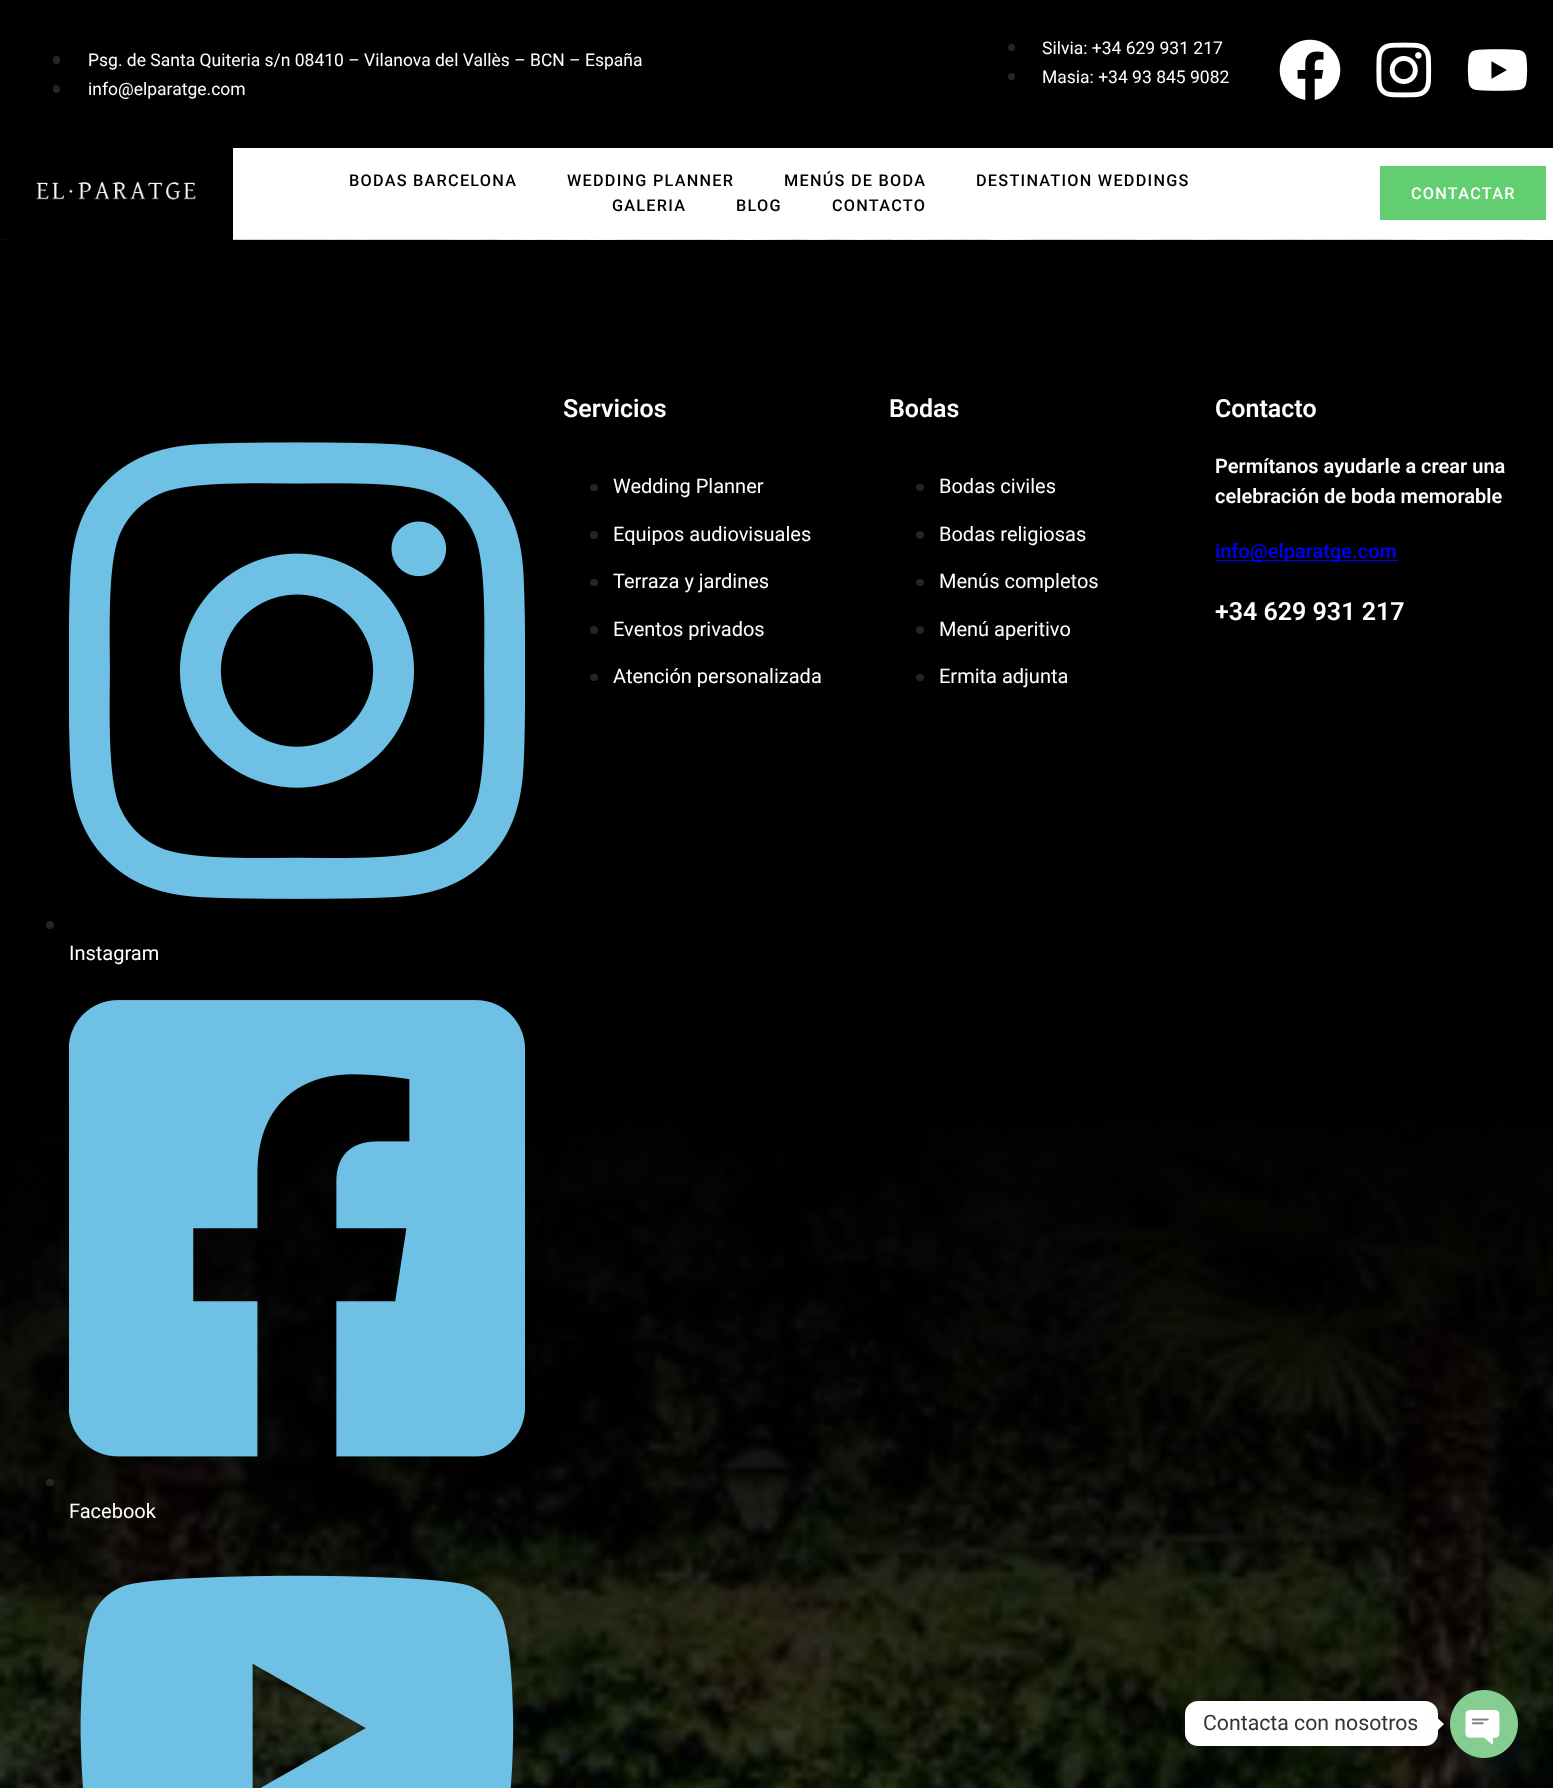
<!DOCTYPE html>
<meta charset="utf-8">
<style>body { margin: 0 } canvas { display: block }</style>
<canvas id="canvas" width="1553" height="1788"></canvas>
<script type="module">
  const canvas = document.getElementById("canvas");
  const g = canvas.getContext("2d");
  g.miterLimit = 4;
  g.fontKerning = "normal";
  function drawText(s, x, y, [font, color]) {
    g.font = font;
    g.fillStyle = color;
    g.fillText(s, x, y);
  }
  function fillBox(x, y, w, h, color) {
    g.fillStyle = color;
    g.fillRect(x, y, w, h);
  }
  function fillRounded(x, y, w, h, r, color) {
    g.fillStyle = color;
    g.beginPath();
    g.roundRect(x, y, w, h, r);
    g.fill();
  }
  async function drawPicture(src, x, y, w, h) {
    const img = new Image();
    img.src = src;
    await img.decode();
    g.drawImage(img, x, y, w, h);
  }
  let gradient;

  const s1 = ["17.5px Roboto", "#FFFFFF"];
  const s2 = ["500 16.25px Roboto", "#000000"];
  const s3 = ["500 16.25px Roboto", "#FFFFFF"];
  const s4 = ["600 25px Roboto", "#FFFFFF"];
  const s5 = ["20px Roboto", "#FFFFFF"];
  const s6 = ["600 20px Roboto", "#FFFFFF"];
  const s7 = ["600 20px Roboto", "#0000EE"];
  const s8 = ["21.25px Roboto", "#333333"];

  fillBox(0, 0, 1553, 1788, "#FFFFFF");
  fillBox(0, 0, 1553, 148, "#000000");
  fillRounded(53, 56, 7, 8, 3.5, "#252525");
  drawText("Psg. de Santa Quiteria s/n 08410 – Vilanova del Vallès – BCN – España", 88, 66, s1);
  fillRounded(53, 85, 7, 8, 3.5, "#252525");
  drawText("info@elparatge.com", 88, 95, s1);
  g.fillStyle = "#252525";
  g.beginPath();
  g.arc(1011.5, 47.5, 3.5, 0, Math.PI * 2);
  g.fill();
  drawText("Silvia: +34 629 931 217", 1042, 54, s1);
  g.fillStyle = "#252525";
  g.beginPath();
  g.arc(1011.5, 76.5, 3.5, 0, Math.PI * 2);
  g.fill();
  drawText("Masia: +34 93 845 9082", 1042, 83, s1);
  await drawPicture("pic1.png", 1279, 39, 62, 61);
  await drawPicture("pic2.png", 1376, 42, 56, 56);
  await drawPicture("pic3.png", 1467, 49, 61, 42);
  fillBox(0, 148, 233, 92, "#000000");
  await drawPicture("pic4.png", 36, 181, 160, 19);
  g.letterSpacing = "1.25px";
  drawText("BODAS BARCELONA", 349, 186, s2);
  drawText("WEDDING PLANNER", 567, 186, s2);
  drawText("MENÚS DE BODA", 784, 186, s2);
  drawText("DESTINATION WEDDINGS", 976, 186, s2);
  drawText("GALERIA", 612, 211, s2);
  drawText("BLOG", 736, 211, s2);
  drawText("CONTACTO", 832, 211, s2);
  fillBox(1380, 166, 166, 54, "#61CE70");
  drawText("CONTACTAR", 1411, 199, s3);
  await drawPicture("pic5.png", 0, 239, 1553, 1549);
  gradient = g.createLinearGradient(777, 240, 777, 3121);
  gradient.addColorStop(0.3, "#000000");
  gradient.addColorStop(1, "rgba(0, 0, 0, 0.3)");
  g.fillStyle = gradient;
  g.fillRect(0, 240, 1553, 1548);
  g.letterSpacing = "0px";
  drawText("Servicios", 563, 417, s4);
  fillRounded(590, 484, 8, 7, 3.5, "#252525");
  drawText("Wedding Planner", 613, 493, s5);
  g.fillStyle = "#252525";
  g.beginPath();
  g.arc(594, 535, 4, 0, Math.PI * 2);
  g.fill();
  drawText("Equipos audiovisuales", 613, 541, s5);
  fillRounded(590, 579, 8, 7, 3.5, "#252525");
  drawText("Terraza y jardines", 613, 588, s5);
  g.fillStyle = "#252525";
  g.beginPath();
  g.arc(594, 630, 4, 0, Math.PI * 2);
  g.fill();
  drawText("Eventos privados", 613, 636, s5);
  fillRounded(590, 674, 8, 7, 3.5, "#252525");
  drawText("Atención personalizada", 613, 683, s5);
  drawText("Bodas", 889, 417, s4);
  fillRounded(916, 484, 8, 7, 3.5, "#252525");
  drawText("Bodas civiles", 939, 493, s5);
  g.fillStyle = "#252525";
  g.beginPath();
  g.arc(920, 535, 4, 0, Math.PI * 2);
  g.fill();
  drawText("Bodas religiosas", 939, 541, s5);
  fillRounded(916, 579, 8, 7, 3.5, "#252525");
  drawText("Menús completos", 939, 588, s5);
  g.fillStyle = "#252525";
  g.beginPath();
  g.arc(920, 630, 4, 0, Math.PI * 2);
  g.fill();
  drawText("Menú aperitivo", 939, 636, s5);
  fillRounded(916, 674, 8, 7, 3.5, "#252525");
  drawText("Ermita adjunta", 939, 683, s5);
  drawText("Contacto", 1215, 417, s4);
  drawText("Permítanos ayudarle a crear una", 1215, 473, s6);
  drawText("celebración de boda memorable", 1215, 503, s6);
  fillBox(1215, 560, 183, 1, "#0000EE");
  drawText("info@elparatge.com", 1215, 558, s7);
  drawText("+34 629 931 217", 1215, 620, s4);
  g.fillStyle = "#252525";
  g.beginPath();
  g.arc(50, 925, 4, 0, Math.PI * 2);
  g.fill();
  await drawPicture("pic6.png", 69, 442, 456, 457);
  drawText("Instagram", 69, 960, s5);
  fillRounded(46, 1479, 8, 7, 3.5, "rgba(54, 54, 54, 0.68)");
  await drawPicture("pic7.png", 69, 1000, 456, 457);
  drawText("Facebook", 69, 1518, s5);
  await drawPicture("pic8.png", 80, 1575, 434, 213);
  fillRounded(1185, 1701, 253, 45, 13, "#FFFFFF");
  drawText("Contacta con nosotros", 1203, 1730, s8);
  g.fillStyle = "#FFFFFF";
  g.beginPath();
  g.moveTo(1437.5, 1730.5);
  g.lineTo(1437.5, 1718);
  g.lineTo(1444, 1724);
  g.closePath();
  g.fill();
  g.fillStyle = "rgba(73, 104, 126, 0.16)";
  g.filter = "blur(15px)";
  g.beginPath();
  g.roundRect(1450, 1710, 68, 68, 34);
  g.fill();
  g.filter = "none";
  await drawPicture("pic9.png", 1450, 1690, 68, 68);
</script>
